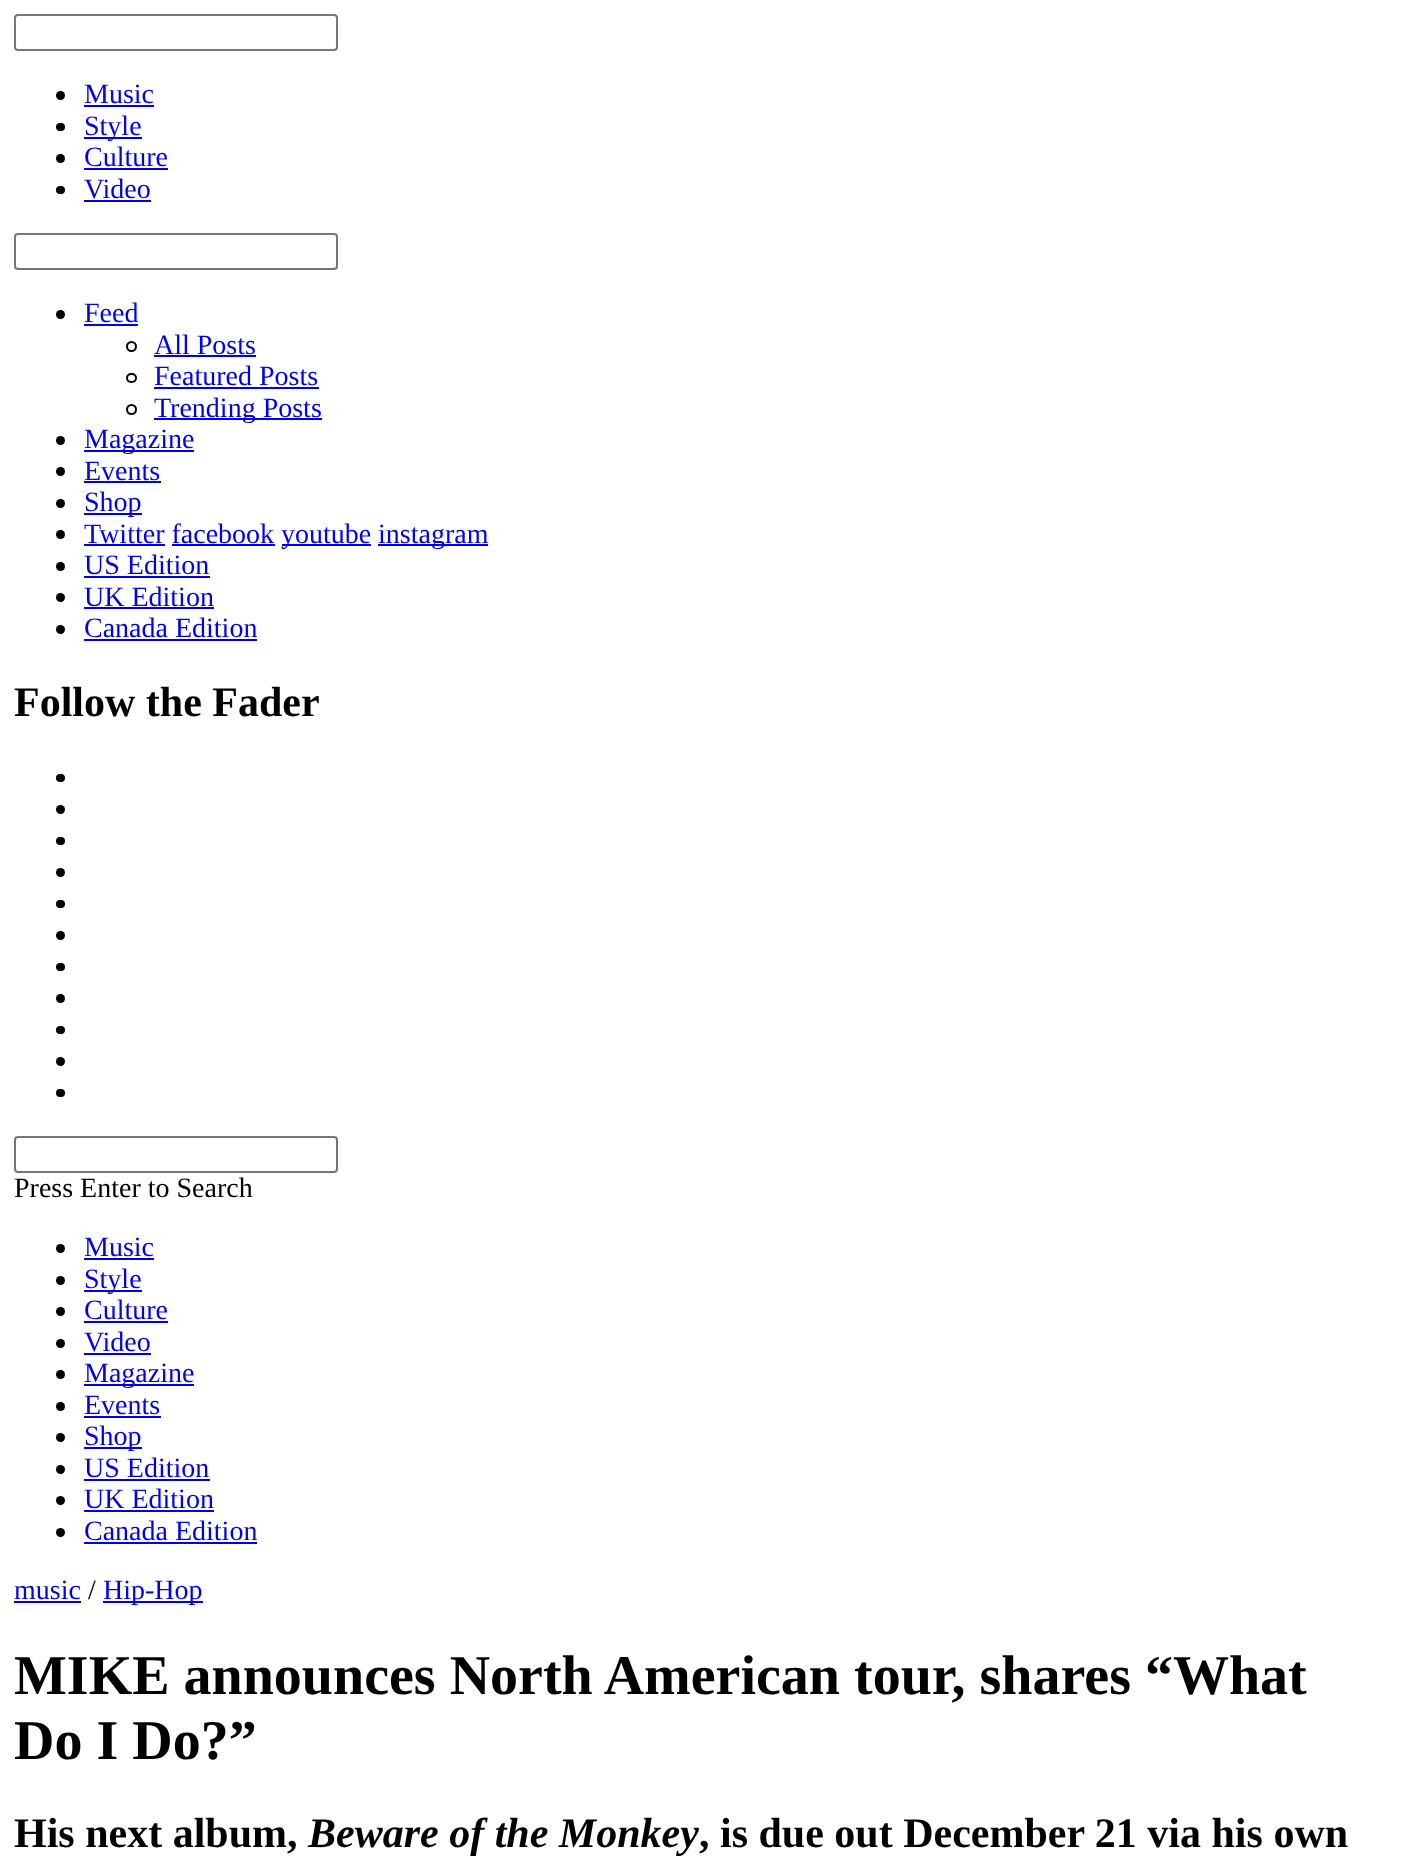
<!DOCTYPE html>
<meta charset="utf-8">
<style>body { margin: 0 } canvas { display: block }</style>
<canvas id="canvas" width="1401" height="1859"></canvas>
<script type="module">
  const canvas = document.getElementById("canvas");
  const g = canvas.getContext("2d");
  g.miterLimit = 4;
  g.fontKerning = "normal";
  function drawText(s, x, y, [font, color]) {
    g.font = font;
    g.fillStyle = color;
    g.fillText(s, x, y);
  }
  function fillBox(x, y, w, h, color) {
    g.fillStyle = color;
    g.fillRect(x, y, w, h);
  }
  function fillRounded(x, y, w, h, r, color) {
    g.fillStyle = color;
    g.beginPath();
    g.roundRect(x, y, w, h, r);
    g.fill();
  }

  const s1 = ["28px Liberation Serif", "#0000EE"];
  const s2 = ["bold 42px Liberation Serif", "#000000"];
  const s3 = ["28px Liberation Serif", "#000000"];
  const s4 = ["bold 56px Liberation Serif", "#000000"];
  const s5 = ["italic bold 42px Liberation Serif", "#000000"];

  fillBox(0, 0, 1401, 1859, "#FFFFFF");
  g.beginPath();
  g.roundRect(15, 15, 322, 35, 3);
  g.strokeStyle = "#767676";
  g.lineWidth = 2;
  g.stroke();
  g.fillStyle = "#000000";
  g.beginPath();
  g.arc(60.5, 95.5, 4.5, 0, Math.PI * 2);
  g.fill();
  drawText("Music", 84, 103, s1);
  fillBox(84, 105, 70, 2, "#0000EE");
  fillRounded(56, 123, 9, 8, 4, "#000000");
  fillBox(84, 137, 58, 2, "#0000EE");
  drawText("Style", 84, 135, s1);
  g.fillStyle = "#000000";
  g.beginPath();
  g.arc(60.5, 158.5, 4.5, 0, Math.PI * 2);
  g.fill();
  drawText("Culture", 84, 166, s1);
  fillBox(84, 168, 84, 2, "#0000EE");
  fillRounded(56, 186, 9, 8, 4, "#000000");
  drawText("Video", 84, 198, s1);
  fillBox(84, 200, 67, 2, "#0000EE");
  g.beginPath();
  g.roundRect(15, 234, 322, 35, 3);
  g.stroke();
  g.fillStyle = "#000000";
  g.beginPath();
  g.arc(60.5, 314.5, 4.5, 0, Math.PI * 2);
  g.fill();
  drawText("Feed", 84, 322, s1);
  fillBox(84, 324, 54, 2, "#0000EE");
  g.beginPath();
  g.arc(131.5, 346.5, 4.5, 0, Math.PI * 2);
  g.strokeStyle = "#000000";
  g.stroke();
  drawText("All Posts", 154, 354, s1);
  fillBox(154, 355, 102, 2, "#0000EE");
  g.beginPath();
  g.roundRect(127, 374, 9, 8, 4);
  g.stroke();
  drawText("Featured Posts", 154, 385, s1);
  fillBox(154, 387, 165, 2, "#0000EE");
  g.beginPath();
  g.arc(131.5, 409.5, 4.5, 0, Math.PI * 2);
  g.stroke();
  fillBox(154, 418, 168, 2, "#0000EE");
  drawText("Trending Posts", 154, 417, s1);
  g.fillStyle = "#000000";
  g.beginPath();
  g.arc(60.5, 440.5, 4.5, 0, Math.PI * 2);
  g.fill();
  fillBox(84, 450, 110, 2, "#0000EE");
  drawText("Magazine", 84, 448, s1);
  g.fillStyle = "#000000";
  g.beginPath();
  g.arc(60.5, 471.5, 4.5, 0, Math.PI * 2);
  g.fill();
  drawText("Events", 84, 480, s1);
  fillBox(84, 481, 77, 2, "#0000EE");
  g.fillStyle = "#000000";
  g.beginPath();
  g.arc(60.5, 503.5, 4.5, 0, Math.PI * 2);
  g.fill();
  fillBox(84, 513, 58, 2, "#0000EE");
  drawText("Shop", 84, 511, s1);
  g.fillStyle = "#000000";
  g.beginPath();
  g.arc(60.5, 534.5, 4.5, 0, Math.PI * 2);
  g.fill();
  drawText("Twitter facebook", 84, 543, s1);
  fillBox(84, 544, 81, 2, "#0000EE");
  fillBox(282, 544, 89, 2, "#0000EE");
  drawText("youtube", 281, 543, s1);
  fillBox(378, 544, 110, 2, "#0000EE");
  drawText("instagram", 378, 543, s1);
  fillBox(172, 544, 103, 2, "#0000EE");
  g.fillStyle = "#000000";
  g.beginPath();
  g.arc(60.5, 566.5, 4.5, 0, Math.PI * 2);
  g.fill();
  drawText("US Edition", 84, 574, s1);
  fillBox(84, 576, 126, 2, "#0000EE");
  g.fillStyle = "#000000";
  g.beginPath();
  g.arc(60.5, 597.5, 4.5, 0, Math.PI * 2);
  g.fill();
  drawText("UK Edition", 84, 606, s1);
  fillBox(84, 607, 130, 2, "#0000EE");
  g.fillStyle = "#000000";
  g.beginPath();
  g.arc(60.5, 629.5, 4.5, 0, Math.PI * 2);
  g.fill();
  drawText("Canada Edition", 84, 637, s1);
  fillBox(84, 639, 173, 2, "#0000EE");
  drawText("Follow the Fader", 14, 716, s2);
  fillRounded(56, 774, 9, 8, 4, "#000000");
  g.beginPath();
  g.arc(60.5, 809.5, 4.5, 0, Math.PI * 2);
  g.fill();
  fillRounded(56, 837, 9, 8, 4, "#000000");
  g.beginPath();
  g.arc(60.5, 872.5, 4.5, 0, Math.PI * 2);
  g.fill();
  fillRounded(56, 900, 9, 8, 4, "#000000");
  g.beginPath();
  g.arc(60.5, 935.5, 4.5, 0, Math.PI * 2);
  g.fill();
  fillRounded(56, 963, 9, 8, 4, "#000000");
  g.beginPath();
  g.arc(60.5, 998.5, 4.5, 0, Math.PI * 2);
  g.fill();
  fillRounded(56, 1026, 9, 8, 4, "#000000");
  g.beginPath();
  g.arc(60.5, 1061.5, 4.5, 0, Math.PI * 2);
  g.fill();
  fillRounded(56, 1089, 9, 8, 4, "#000000");
  g.beginPath();
  g.roundRect(15, 1137, 322, 35, 3);
  g.strokeStyle = "#767676";
  g.stroke();
  drawText("Press Enter to Search", 14, 1197, s3);
  g.beginPath();
  g.arc(60.5, 1248.5, 4.5, 0, Math.PI * 2);
  g.fill();
  drawText("Music", 84, 1256, s1);
  fillBox(84, 1258, 70, 2, "#0000EE");
  g.fillStyle = "#000000";
  g.beginPath();
  g.arc(60.5, 1280.5, 4.5, 0, Math.PI * 2);
  g.fill();
  fillBox(84, 1290, 58, 2, "#0000EE");
  drawText("Style", 84, 1288, s1);
  g.fillStyle = "#000000";
  g.beginPath();
  g.arc(60.5, 1311.5, 4.5, 0, Math.PI * 2);
  g.fill();
  drawText("Culture", 84, 1319, s1);
  fillBox(84, 1321, 84, 2, "#0000EE");
  g.fillStyle = "#000000";
  g.beginPath();
  g.arc(60.5, 1343.5, 4.5, 0, Math.PI * 2);
  g.fill();
  drawText("Video", 84, 1351, s1);
  fillBox(84, 1353, 67, 2, "#0000EE");
  g.fillStyle = "#000000";
  g.beginPath();
  g.arc(60.5, 1374.5, 4.5, 0, Math.PI * 2);
  g.fill();
  fillBox(84, 1384, 110, 2, "#0000EE");
  drawText("Magazine", 84, 1382, s1);
  g.fillStyle = "#000000";
  g.beginPath();
  g.arc(60.5, 1406.5, 4.5, 0, Math.PI * 2);
  g.fill();
  drawText("Events", 84, 1414, s1);
  fillBox(84, 1416, 77, 2, "#0000EE");
  g.fillStyle = "#000000";
  g.beginPath();
  g.arc(60.5, 1437.5, 4.5, 0, Math.PI * 2);
  g.fill();
  fillBox(84, 1447, 58, 2, "#0000EE");
  drawText("Shop", 84, 1445, s1);
  g.fillStyle = "#000000";
  g.beginPath();
  g.arc(60.5, 1469.5, 4.5, 0, Math.PI * 2);
  g.fill();
  drawText("US Edition", 84, 1477, s1);
  fillBox(84, 1479, 126, 2, "#0000EE");
  g.fillStyle = "#000000";
  g.beginPath();
  g.arc(60.5, 1500.5, 4.5, 0, Math.PI * 2);
  g.fill();
  drawText("UK Edition", 84, 1508, s1);
  fillBox(84, 1510, 130, 2, "#0000EE");
  g.fillStyle = "#000000";
  g.beginPath();
  g.arc(60.5, 1532.5, 4.5, 0, Math.PI * 2);
  g.fill();
  drawText("Canada Edition", 84, 1540, s1);
  fillBox(84, 1542, 173, 2, "#0000EE");
  drawText("music", 14, 1599, s1);
  fillBox(14, 1601, 67, 2, "#0000EE");
  drawText("/", 88, 1599, s3);
  fillBox(103, 1601, 100, 2, "#0000EE");
  drawText("Hip-Hop", 103, 1599, s1);
  drawText("MIKE announces North American tour, shares “What", 14, 1694, s4);
  drawText("Do I Do?”", 14, 1759, s4);
  drawText("His next album,", 14, 1847, s2);
  drawText("Beware of the Monkey", 308, 1847, s5);
  drawText(", is due out December 21 via his own", 699, 1847, s2);
</script>
